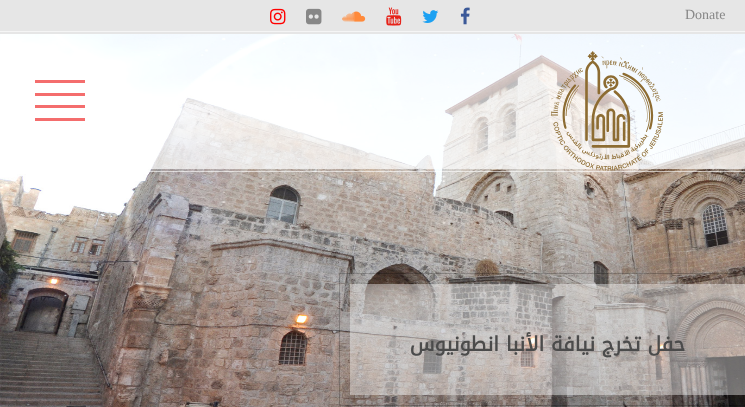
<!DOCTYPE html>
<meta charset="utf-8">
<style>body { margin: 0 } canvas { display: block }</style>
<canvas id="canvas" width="745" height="407"></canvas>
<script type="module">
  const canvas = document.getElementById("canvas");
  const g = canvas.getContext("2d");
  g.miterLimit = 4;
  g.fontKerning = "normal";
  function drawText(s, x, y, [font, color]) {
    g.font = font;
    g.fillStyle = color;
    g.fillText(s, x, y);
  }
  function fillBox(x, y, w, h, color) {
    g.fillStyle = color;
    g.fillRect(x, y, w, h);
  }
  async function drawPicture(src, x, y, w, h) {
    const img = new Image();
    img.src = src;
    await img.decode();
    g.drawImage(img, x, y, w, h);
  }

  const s1 = ["14px Liberation Serif", "#878787"];
  const s2 = ["bold 20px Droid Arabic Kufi", "#4B4B4B"];

  fillBox(0, 0, 745, 407, "#FFFFFF");
  await drawPicture("pic1.png", 0, 34, 745, 373);
  fillBox(0, 0, 745, 34, "#E6E6E6");
  drawText("Donate", 685, 19, s1);
  await drawPicture("pic2.png", 460, 7, 10, 18);
  await drawPicture("pic3.png", 422, 10, 17, 13);
  await drawPicture("pic4.png", 386, 7, 16, 19);
  await drawPicture("pic5.png", 342, 11, 24, 11);
  await drawPicture("pic6.png", 306, 8, 16, 17);
  await drawPicture("pic7.png", 270, 8, 16, 17);
  fillBox(0, 34, 745, 135, "rgba(255, 255, 255, 0.7)");
  fillBox(0, 31, 745, 1, "#F5F5F5");
  await drawPicture("pic8.png", 551, 51, 112, 120);
  fillBox(35, 80, 50, 3, "#F46D6D");
  fillBox(35, 93, 50, 3, "#F46D6D");
  fillBox(35, 105, 50, 3, "#F46D6D");
  fillBox(35, 118, 50, 3, "#F46D6D");
  fillBox(149, 171, 596, 1, "rgba(255, 255, 255, 0.6)");
  fillBox(350, 284, 395, 111, "rgba(255, 255, 255, 0.4)");
  g.strokeStyle = "rgba(0, 0, 0, 0.2)";
  g.strokeRect(339.5, 273.5, 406, 132);
  g.direction = "rtl";
  drawText("حفل تخرج نيافة الأنبا انطونيوس", 685, 351, s2);
</script>
